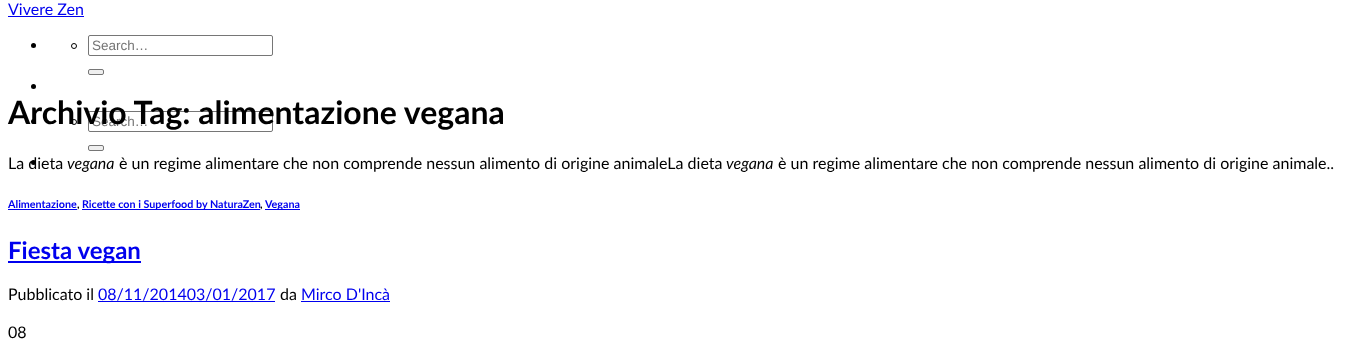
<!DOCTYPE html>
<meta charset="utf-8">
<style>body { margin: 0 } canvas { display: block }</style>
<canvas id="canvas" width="1352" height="352"></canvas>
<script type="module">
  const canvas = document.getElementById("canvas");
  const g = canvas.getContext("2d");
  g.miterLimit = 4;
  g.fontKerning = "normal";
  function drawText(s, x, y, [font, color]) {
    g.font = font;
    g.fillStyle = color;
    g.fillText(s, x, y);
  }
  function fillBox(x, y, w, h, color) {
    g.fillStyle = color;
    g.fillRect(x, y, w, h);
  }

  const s1 = ["16px Lato", "#0000EE"];
  const s2 = ["13.5px Liberation Sans", "#757575"];
  const s3 = ["bold 32px Lato", "#000000"];
  const s4 = ["16px Lato", "#000000"];
  const s5 = ["italic 16px Lato", "#000000"];
  const s6 = ["bold 10.75px Lato", "#0000EE"];
  const s7 = ["bold 10.75px Lato", "#000000"];
  const s8 = ["bold 24px Lato", "#0000EE"];

  fillBox(0, 0, 1352, 352, "#FFFFFF");
  drawText("Vivere Zen", 8, 15, s1);
  fillBox(8, 16, 76, 1, "#0000EE");
  g.fillStyle = "#000000";
  g.beginPath();
  g.arc(33.5, 45.5, 2.5, 0, Math.PI * 2);
  g.fill();
  g.beginPath();
  g.arc(74, 46, 2.5, 0, Math.PI * 2);
  g.strokeStyle = "#000000";
  g.stroke();
  g.beginPath();
  g.roundRect(88.5, 35.5, 184, 20, 1.5);
  g.strokeStyle = "#767676";
  g.stroke();
  drawText("Search…", 92, 50, s2);
  g.fillStyle = "#EFEFEF";
  g.beginPath();
  g.roundRect(88.5, 69.5, 15, 5, 1.5);
  g.fill();
  g.stroke();
  g.fillStyle = "#000000";
  g.beginPath();
  g.arc(33.5, 86.5, 2.5, 0, Math.PI * 2);
  g.fill();
  g.beginPath();
  g.arc(33.5, 121.5, 2.5, 0, Math.PI * 2);
  g.fill();
  g.beginPath();
  g.arc(74, 122, 2.5, 0, Math.PI * 2);
  g.strokeStyle = "#000000";
  g.stroke();
  g.beginPath();
  g.roundRect(88.5, 111.5, 184, 20, 1.5);
  g.strokeStyle = "#767676";
  g.stroke();
  drawText("Search…", 92, 126, s2);
  g.fillStyle = "#EFEFEF";
  g.beginPath();
  g.roundRect(88.5, 145.5, 15, 5, 1.5);
  g.fill();
  g.stroke();
  g.fillStyle = "#000000";
  g.beginPath();
  g.arc(33.5, 162.5, 2.5, 0, Math.PI * 2);
  g.fill();
  drawText("Archivio Tag: alimentazione vegana", 8, 124, s3);
  drawText("La dieta", 8, 169, s4);
  drawText("vegana", 67, 169, s5);
  drawText("è un regime alimentare che non comprende nessun alimento di origine animaleLa dieta", 119, 169, s4);
  drawText("vegana", 726, 169, s5);
  drawText("è un regime alimentare che non comprende nessun alimento di origine animale..", 778, 169, s4);
  drawText("Alimentazione", 8, 208, s6);
  fillBox(8, 209, 69, 1, "#0000EE");
  drawText(",", 77, 208, s7);
  fillBox(82, 209, 178, 1, "#0000EE");
  drawText("Ricette con i Superfood by NaturaZen", 82, 208, s6);
  drawText(",", 260, 208, s7);
  fillBox(265, 209, 35, 1, "#0000EE");
  drawText("Vegana", 265, 208, s6);
  fillBox(8, 261, 133, 2, "#0000EE");
  drawText("Fiesta vegan", 8, 259, s8);
  drawText("Pubblicato il", 8, 300, s4);
  drawText("08/11/201403/01/2017", 98, 300, s1);
  fillBox(98, 301, 177, 1, "#0000EE");
  drawText("da", 280, 300, s4);
  drawText("Mirco D'Incà", 301, 300, s1);
  fillBox(301, 301, 89, 1, "#0000EE");
  drawText("08", 8, 338, s4);
</script>
